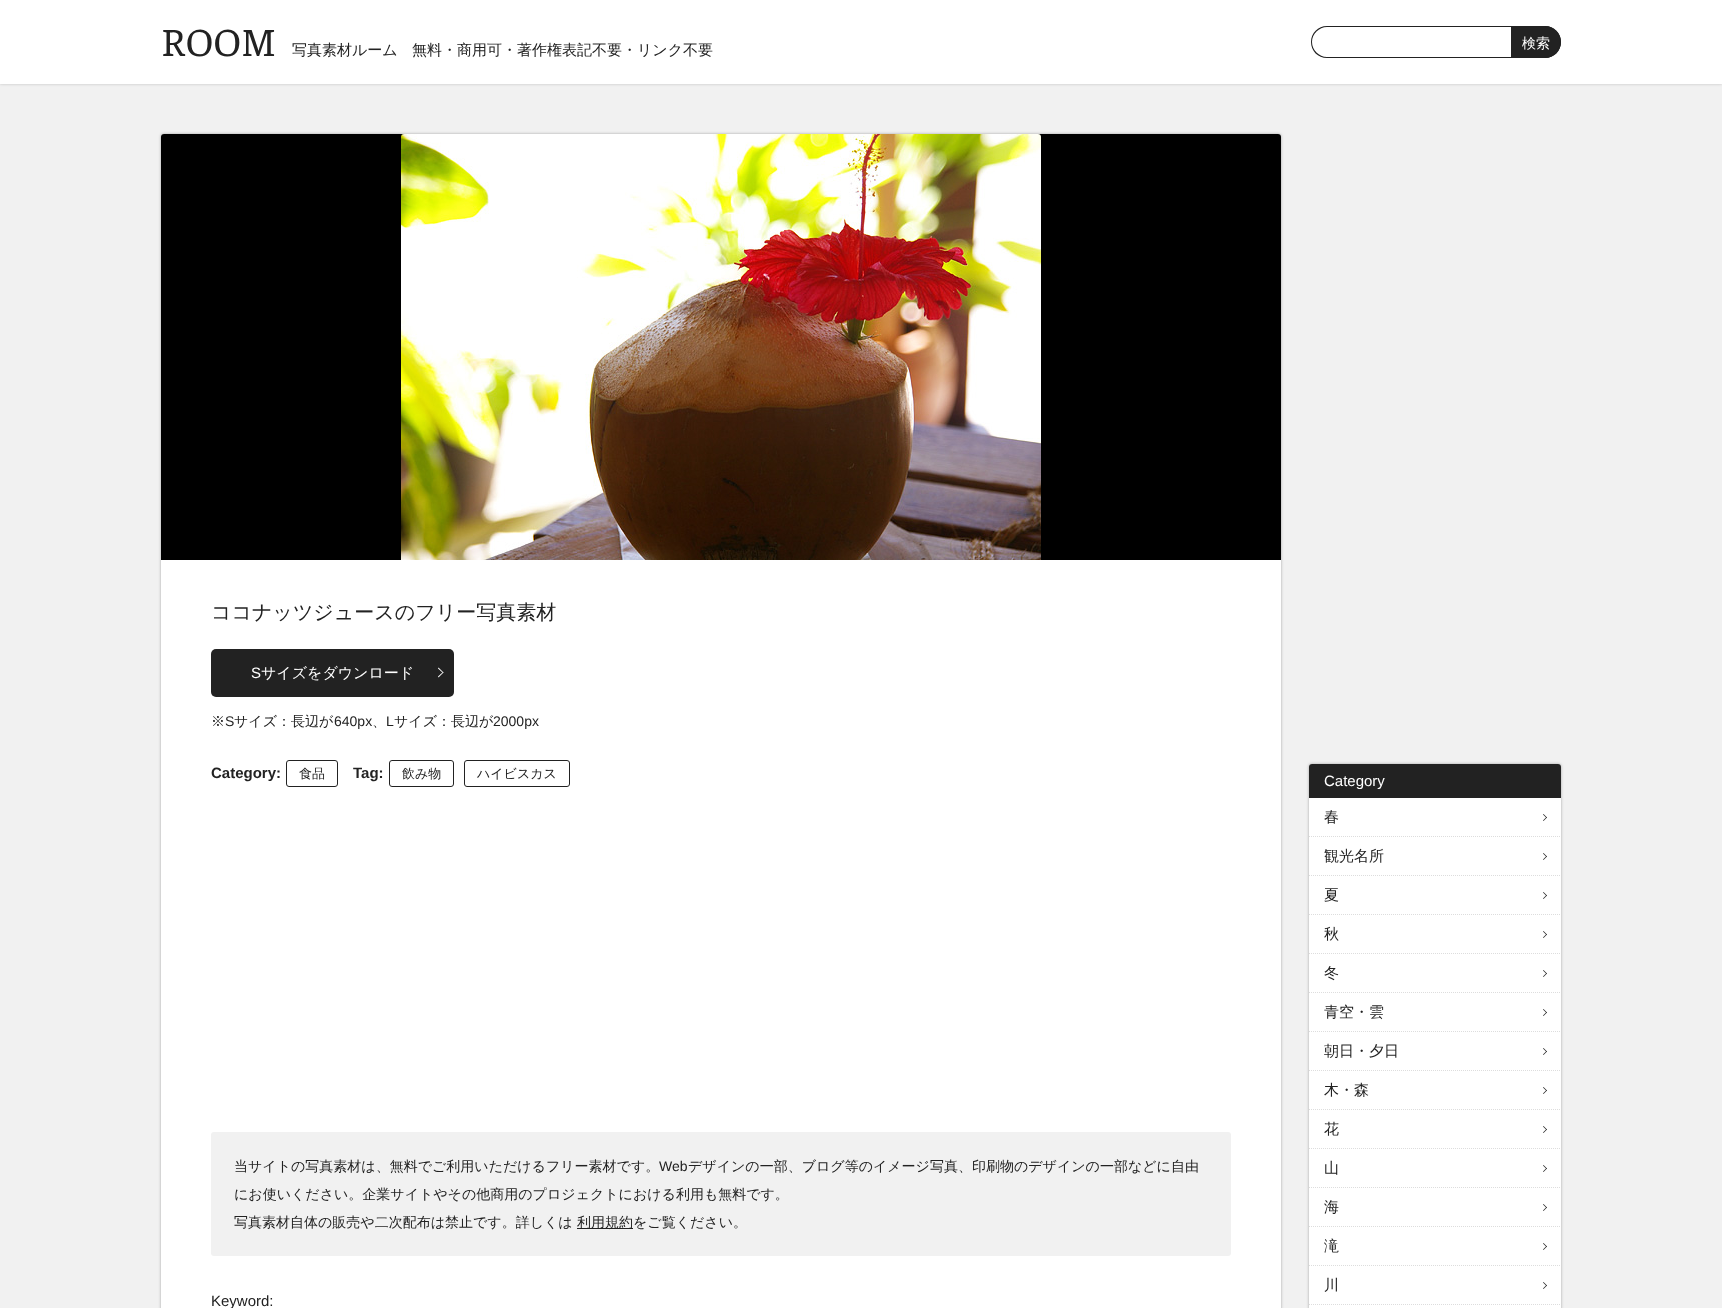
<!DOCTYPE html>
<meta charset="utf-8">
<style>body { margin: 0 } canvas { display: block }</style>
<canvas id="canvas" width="1722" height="1308"></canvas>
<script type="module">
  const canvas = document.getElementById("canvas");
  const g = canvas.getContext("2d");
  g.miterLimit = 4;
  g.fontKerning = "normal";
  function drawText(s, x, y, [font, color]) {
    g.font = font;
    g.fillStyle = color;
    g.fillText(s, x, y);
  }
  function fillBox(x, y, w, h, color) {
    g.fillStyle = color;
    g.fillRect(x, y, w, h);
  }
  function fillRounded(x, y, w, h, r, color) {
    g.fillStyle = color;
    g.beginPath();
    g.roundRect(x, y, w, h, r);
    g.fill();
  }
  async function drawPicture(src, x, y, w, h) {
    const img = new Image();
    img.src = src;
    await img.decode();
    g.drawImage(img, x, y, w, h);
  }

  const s1 = ["40px Faustina", "#222222"];
  const s2 = ["500 15px WenQuanYi Zen Hei", "#222222"];
  const s3 = ["500 14px WenQuanYi Zen Hei", "#FFFFFF"];
  const s4 = ["500 20px WenQuanYi Zen Hei", "#222222"];
  const s5 = ["15px Liberation Sans", "#FFFFFF"];
  const s6 = ["500 15px WenQuanYi Zen Hei", "#FFFFFF"];
  const s7 = ["500 14px WenQuanYi Zen Hei", "#222222"];
  const s8 = ["14px Liberation Sans", "#222222"];
  const s9 = ["bold 15px Liberation Sans", "#222222"];
  const s10 = ["500 13px WenQuanYi Zen Hei", "#222222"];
  const s11 = ["15px Liberation Sans", "#222222"];

  fillBox(0, 0, 1722, 1308, "#F1F1F1");
  g.fillStyle = "rgba(0, 0, 0, 0.2)";
  g.filter = "blur(1.5px)";
  g.beginPath();
  g.rect(0, 0, 1722, 84);
  g.fill();
  g.filter = "none";
  fillBox(0, 0, 1722, 84, "#FFFFFF");
  drawText("ROOM", 161, 56, s1);
  drawText("写真素材ルーム", 292, 55, s2);
  drawText("無料・商用可・著作権表記不要・リンク不要", 412, 55, s2);
  g.beginPath();
  g.moveTo(1327, 26);
  g.lineTo(1511, 26);
  g.lineTo(1511, 58);
  g.lineTo(1327, 58);
  g.bezierCurveTo(1318, 58, 1311, 51, 1311, 42);
  g.bezierCurveTo(1311, 33, 1318, 26, 1327, 26);
  g.closePath();
  g.moveTo(1327, 27);
  g.lineTo(1511, 27);
  g.lineTo(1511, 57);
  g.lineTo(1327, 57);
  g.bezierCurveTo(1319, 57, 1312, 50, 1312, 42);
  g.bezierCurveTo(1312, 34, 1319, 27, 1327, 27);
  g.closePath();
  g.fill("evenodd");
  g.beginPath();
  g.roundRect(1511, 26, 50, 32, [0, 16, 16, 0]);
  g.fill();
  g.beginPath();
  g.moveTo(1511, 26);
  g.lineTo(1545, 26);
  g.bezierCurveTo(1554, 26, 1561, 33, 1561, 42);
  g.bezierCurveTo(1561, 51, 1554, 58, 1545, 58);
  g.lineTo(1511, 58);
  g.closePath();
  g.moveTo(1511, 27);
  g.lineTo(1545, 27);
  g.bezierCurveTo(1553, 27, 1560, 34, 1560, 42);
  g.bezierCurveTo(1560, 50, 1553, 57, 1545, 57);
  g.lineTo(1511, 57);
  g.closePath();
  g.fill("evenodd");
  drawText("検索", 1522, 48, s3);
  g.fillStyle = "rgba(0, 0, 0, 0.3)";
  g.filter = "blur(1.5px)";
  g.beginPath();
  g.roundRect(161, 134, 1120, 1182, 3);
  g.fill();
  g.filter = "none";
  fillRounded(161, 134, 1120, 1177, 3, "#FFFFFF");
  g.fillStyle = "#000000";
  g.beginPath();
  g.roundRect(161, 134, 1120, 426, [3, 3, 0, 0]);
  g.fill();
  await drawPicture("pic1.png", 401, 134, 640, 426);
  drawText("ココナッツジュースのフリー写真素材", 211, 619, s4);
  fillRounded(211, 649, 243, 48, 5, "#222222");
  drawText("S", 251, 678, s5);
  drawText("サイズをダウンロード", 261, 678, s6);
  g.beginPath();
  g.moveTo(438.5, 667.5);
  g.lineTo(443.5, 672.5);
  g.lineTo(443, 673);
  g.lineTo(438, 668.5);
  g.closePath();
  g.fill();
  g.beginPath();
  g.moveTo(443, 672);
  g.lineTo(443.5, 672.5);
  g.lineTo(438.5, 677.5);
  g.lineTo(438, 676.5);
  g.closePath();
  g.fill();
  drawText("※", 211, 726, s7);
  drawText("S", 225, 726, s8);
  drawText("サイズ：長辺が", 234, 726, s7);
  drawText("640px", 334, 726, s8);
  drawText("、", 372, 726, s7);
  drawText("L", 386, 726, s8);
  drawText("サイズ：長辺が", 394, 726, s7);
  drawText("2000px", 493, 726, s8);
  drawText("Category:", 211, 778, s9);
  g.beginPath();
  g.roundRect(286.5, 760.5, 51, 26, 2.5);
  g.strokeStyle = "#222222";
  g.stroke();
  drawText("食品", 299, 778, s10);
  drawText("Tag:", 353, 778, s9);
  g.beginPath();
  g.roundRect(389.5, 760.5, 64, 26, 2.5);
  g.stroke();
  drawText("飲み物", 402, 778, s10);
  g.beginPath();
  g.roundRect(464.5, 760.5, 105, 26, 2.5);
  g.stroke();
  drawText("ハイビスカス", 477, 778, s10);
  fillRounded(211, 1132, 1020, 124, 3, "#F1F1F1");
  drawText("当サイトの写真素材は、無料でご利用いただけるフリー素材です。", 234, 1171, s7);
  drawText("Web", 659, 1171, s8);
  drawText("デザインの一部、ブログ等のイメージ写真、印刷物のデザインの一部などに自由", 688, 1171, s7);
  drawText("にお使いください。企業サイトやその他商用のプロジェクトにおける利用も無料です。", 234, 1199, s7);
  drawText("写真素材自体の販売や二次配布は禁止です。詳しくは", 234, 1227, s7);
  fillBox(577, 1228, 56, 1, "#222222");
  drawText("利用規約をご覧ください。", 577, 1227, s7);
  drawText("Keyword:", 211, 1306, s11);
  g.fillStyle = "rgba(0, 0, 0, 0.3)";
  g.filter = "blur(1.5px)";
  g.beginPath();
  g.roundRect(1309, 764, 252, 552, 3);
  g.fill();
  g.filter = "none";
  fillRounded(1309, 764, 252, 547, 3, "#FFFFFF");
  g.fillStyle = "#222222";
  g.beginPath();
  g.roundRect(1309, 764, 252, 34, [3, 3, 0, 0]);
  g.fill();
  drawText("Category", 1324, 786, s5);
  g.beginPath();
  g.moveTo(1309, 836.5);
  g.lineTo(1561, 836.5);
  g.strokeStyle = "#DDDDDD";
  g.setLineDash([1, 1]);
  g.stroke();
  drawText("春", 1324, 822, s2);
  g.beginPath();
  g.moveTo(1543.5, 814);
  g.lineTo(1547, 817.5);
  g.lineTo(1546.5, 818);
  g.lineTo(1543, 814.5);
  g.closePath();
  g.fill();
  g.beginPath();
  g.moveTo(1546.5, 817);
  g.lineTo(1547, 817.5);
  g.lineTo(1543.5, 821);
  g.lineTo(1543, 820.5);
  g.closePath();
  g.fill();
  g.beginPath();
  g.moveTo(1309, 875.5);
  g.lineTo(1561, 875.5);
  g.stroke();
  drawText("観光名所", 1324, 861, s2);
  g.beginPath();
  g.moveTo(1543.5, 853);
  g.lineTo(1547, 856.5);
  g.lineTo(1546.5, 857);
  g.lineTo(1543, 853.5);
  g.closePath();
  g.fill();
  g.beginPath();
  g.moveTo(1546.5, 856);
  g.lineTo(1547, 856.5);
  g.lineTo(1543.5, 860);
  g.lineTo(1543, 859.5);
  g.closePath();
  g.fill();
  g.beginPath();
  g.moveTo(1309, 914.5);
  g.lineTo(1561, 914.5);
  g.stroke();
  drawText("夏", 1324, 900, s2);
  g.beginPath();
  g.moveTo(1543.5, 892);
  g.lineTo(1547, 895.5);
  g.lineTo(1546.5, 896);
  g.lineTo(1543, 892.5);
  g.closePath();
  g.fill();
  g.beginPath();
  g.moveTo(1546.5, 895);
  g.lineTo(1547, 895.5);
  g.lineTo(1543.5, 899);
  g.lineTo(1543, 898.5);
  g.closePath();
  g.fill();
  g.beginPath();
  g.moveTo(1309, 953.5);
  g.lineTo(1561, 953.5);
  g.stroke();
  drawText("秋", 1324, 939, s2);
  g.beginPath();
  g.moveTo(1543.5, 931);
  g.lineTo(1547, 934.5);
  g.lineTo(1546.5, 935);
  g.lineTo(1543, 931.5);
  g.closePath();
  g.fill();
  g.beginPath();
  g.moveTo(1546.5, 934);
  g.lineTo(1547, 934.5);
  g.lineTo(1543.5, 938);
  g.lineTo(1543, 937.5);
  g.closePath();
  g.fill();
  g.beginPath();
  g.moveTo(1309, 992.5);
  g.lineTo(1561, 992.5);
  g.stroke();
  drawText("冬", 1324, 978, s2);
  g.beginPath();
  g.moveTo(1543.5, 970);
  g.lineTo(1547, 973.5);
  g.lineTo(1546.5, 974);
  g.lineTo(1543, 970.5);
  g.closePath();
  g.fill();
  g.beginPath();
  g.moveTo(1546.5, 973);
  g.lineTo(1547, 973.5);
  g.lineTo(1543.5, 977);
  g.lineTo(1543, 976.5);
  g.closePath();
  g.fill();
  g.beginPath();
  g.moveTo(1309, 1031.5);
  g.lineTo(1561, 1031.5);
  g.stroke();
  drawText("青空・雲", 1324, 1017, s2);
  g.beginPath();
  g.moveTo(1543.5, 1009);
  g.lineTo(1547, 1012.5);
  g.lineTo(1546.5, 1013);
  g.lineTo(1543, 1009.5);
  g.closePath();
  g.fill();
  g.beginPath();
  g.moveTo(1546.5, 1012);
  g.lineTo(1547, 1012.5);
  g.lineTo(1543.5, 1016);
  g.lineTo(1543, 1015.5);
  g.closePath();
  g.fill();
  g.beginPath();
  g.moveTo(1309, 1070.5);
  g.lineTo(1561, 1070.5);
  g.stroke();
  drawText("朝日・夕日", 1324, 1056, s2);
  g.beginPath();
  g.moveTo(1543.5, 1048);
  g.lineTo(1547, 1051.5);
  g.lineTo(1546.5, 1052);
  g.lineTo(1543, 1048.5);
  g.closePath();
  g.fill();
  g.beginPath();
  g.moveTo(1546.5, 1051);
  g.lineTo(1547, 1051.5);
  g.lineTo(1543.5, 1055);
  g.lineTo(1543, 1054.5);
  g.closePath();
  g.fill();
  g.beginPath();
  g.moveTo(1309, 1109.5);
  g.lineTo(1561, 1109.5);
  g.stroke();
  drawText("木・森", 1324, 1095, s2);
  g.beginPath();
  g.moveTo(1543.5, 1087);
  g.lineTo(1547, 1090.5);
  g.lineTo(1546.5, 1091);
  g.lineTo(1543, 1087.5);
  g.closePath();
  g.fill();
  g.beginPath();
  g.moveTo(1546.5, 1090);
  g.lineTo(1547, 1090.5);
  g.lineTo(1543.5, 1094);
  g.lineTo(1543, 1093.5);
  g.closePath();
  g.fill();
  g.beginPath();
  g.moveTo(1309, 1148.5);
  g.lineTo(1561, 1148.5);
  g.stroke();
  drawText("花", 1324, 1134, s2);
  g.beginPath();
  g.moveTo(1543.5, 1126);
  g.lineTo(1547, 1129.5);
  g.lineTo(1546.5, 1130);
  g.lineTo(1543, 1126.5);
  g.closePath();
  g.fill();
  g.beginPath();
  g.moveTo(1546.5, 1129);
  g.lineTo(1547, 1129.5);
  g.lineTo(1543.5, 1133);
  g.lineTo(1543, 1132.5);
  g.closePath();
  g.fill();
  g.beginPath();
  g.moveTo(1309, 1187.5);
  g.lineTo(1561, 1187.5);
  g.stroke();
  drawText("山", 1324, 1173, s2);
  g.beginPath();
  g.moveTo(1543.5, 1165);
  g.lineTo(1547, 1168.5);
  g.lineTo(1546.5, 1169);
  g.lineTo(1543, 1165.5);
  g.closePath();
  g.fill();
  g.beginPath();
  g.moveTo(1546.5, 1168);
  g.lineTo(1547, 1168.5);
  g.lineTo(1543.5, 1172);
  g.lineTo(1543, 1171.5);
  g.closePath();
  g.fill();
  g.beginPath();
  g.moveTo(1309, 1226.5);
  g.lineTo(1561, 1226.5);
  g.stroke();
  drawText("海", 1324, 1212, s2);
  g.beginPath();
  g.moveTo(1543.5, 1204);
  g.lineTo(1547, 1207.5);
  g.lineTo(1546.5, 1208);
  g.lineTo(1543, 1204.5);
  g.closePath();
  g.fill();
  g.beginPath();
  g.moveTo(1546.5, 1207);
  g.lineTo(1547, 1207.5);
  g.lineTo(1543.5, 1211);
  g.lineTo(1543, 1210.5);
  g.closePath();
  g.fill();
  g.beginPath();
  g.moveTo(1309, 1265.5);
  g.lineTo(1561, 1265.5);
  g.stroke();
  drawText("滝", 1324, 1251, s2);
  g.beginPath();
  g.moveTo(1543.5, 1243);
  g.lineTo(1547, 1246.5);
  g.lineTo(1546.5, 1247);
  g.lineTo(1543, 1243.5);
  g.closePath();
  g.fill();
  g.beginPath();
  g.moveTo(1546.5, 1246);
  g.lineTo(1547, 1246.5);
  g.lineTo(1543.5, 1250);
  g.lineTo(1543, 1249.5);
  g.closePath();
  g.fill();
  g.beginPath();
  g.moveTo(1309, 1304.5);
  g.lineTo(1561, 1304.5);
  g.stroke();
  drawText("川", 1324, 1290, s2);
  g.beginPath();
  g.moveTo(1543.5, 1282);
  g.lineTo(1547, 1285.5);
  g.lineTo(1546.5, 1286);
  g.lineTo(1543, 1282.5);
  g.closePath();
  g.fill();
  g.beginPath();
  g.moveTo(1546.5, 1285);
  g.lineTo(1547, 1285.5);
  g.lineTo(1543.5, 1289);
  g.lineTo(1543, 1288.5);
  g.closePath();
  g.fill();
</script>
